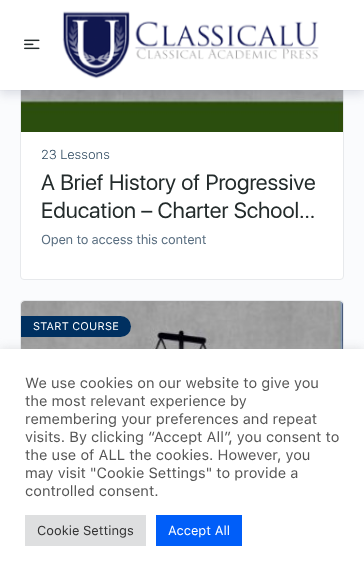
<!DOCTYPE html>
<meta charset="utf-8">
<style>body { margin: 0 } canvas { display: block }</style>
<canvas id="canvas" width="364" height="576"></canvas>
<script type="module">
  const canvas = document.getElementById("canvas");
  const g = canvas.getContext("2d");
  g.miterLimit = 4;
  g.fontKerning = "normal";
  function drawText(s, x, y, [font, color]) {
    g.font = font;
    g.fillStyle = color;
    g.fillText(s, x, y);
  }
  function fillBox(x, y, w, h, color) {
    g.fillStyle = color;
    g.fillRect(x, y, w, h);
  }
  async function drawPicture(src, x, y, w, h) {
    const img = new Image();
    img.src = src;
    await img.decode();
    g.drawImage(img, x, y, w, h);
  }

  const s1 = ["300 13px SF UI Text", "#2F4A60"];
  const s2 = ["22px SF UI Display", "#232B2B"];
  const s3 = ["13px SF UI Text", "#596E80"];
  const s4 = ["11px SF UI Text", "#FFFFFF"];
  const s5 = ["14.7px SF UI Text", "#555555"];
  const s6 = ["13px SF UI Text", "#333333"];
  const s7 = ["13px SF UI Text", "#FFFFFF"];

  fillBox(0, 0, 364, 576, "#FAFBFD");
  g.fillStyle = "#FFFFFF";
  g.beginPath();
  g.roundRect(20.5, -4.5, 323, 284, 3.5);
  g.fill();
  g.strokeStyle = "#E7E9EC";
  g.stroke();
  await drawPicture("pic3.png", 21, 90, 322, 42);
  g.fillStyle = "rgba(65, 71, 108, 0.15)";
  g.filter = "blur(5px)";
  g.beginPath();
  g.rect(0, 5, 364, 90);
  g.fill();
  g.filter = "none";
  fillBox(0, 90, 364, 1, "rgba(139, 141, 157, 0.05)");
  fillBox(0, 0, 364, 90, "#FFFFFF");
  await drawPicture("pic1.png", 24, 39, 16, 11);
  await drawPicture("pic2.png", 62, 11, 257, 68);
  drawText("23 Lessons", 41, 159, s1);
  drawText("A Brief History of Progressive", 41, 190, s2);
  drawText("Education – Charter School…", 41, 218, s2);
  g.letterSpacing = "-0.25px";
  drawText("Open to access this content", 41, 244, s3);
  g.fillStyle = "#FFFFFF";
  g.beginPath();
  g.roundRect(20.5, 300.5, 323, 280, 3.5);
  g.fill();
  g.stroke();
  await drawPicture("pic4.png", 21, 301, 322, 48);
  g.fillStyle = "#003060";
  g.beginPath();
  g.roundRect(21, 316, 110, 21, [0, 10.5, 10.5, 0]);
  g.fill();
  g.letterSpacing = "0.25px";
  drawText("START COURSE", 33, 330, s4);
  g.fillStyle = "rgba(172, 171, 171, 0.3)";
  g.filter = "blur(5px)";
  g.beginPath();
  g.rect(0, 348, 364, 227);
  g.fill();
  g.filter = "none";
  fillBox(0, 349, 364, 227, "#FFFFFF");
  g.letterSpacing = "0px";
  drawText("We use cookies on our website to give you", 25, 388, s5);
  drawText("the most relevant experience by", 25, 406, s5);
  drawText("remembering your preferences and repeat", 25, 424, s5);
  drawText("visits. By clicking “Accept All”, you consent to", 25, 442, s5);
  drawText("the use of ALL the cookies. However, you", 25, 460, s5);
  drawText("may visit \"Cookie Settings\" to provide a", 25, 478, s5);
  drawText("controlled consent.", 25, 496, s5);
  fillBox(25, 515, 121, 31, "#DEDFE0");
  drawText("Cookie Settings", 37, 535, s6);
  fillBox(156, 515, 86, 31, "#005EF9");
  drawText("Accept All", 168, 535, s7);
</script>
